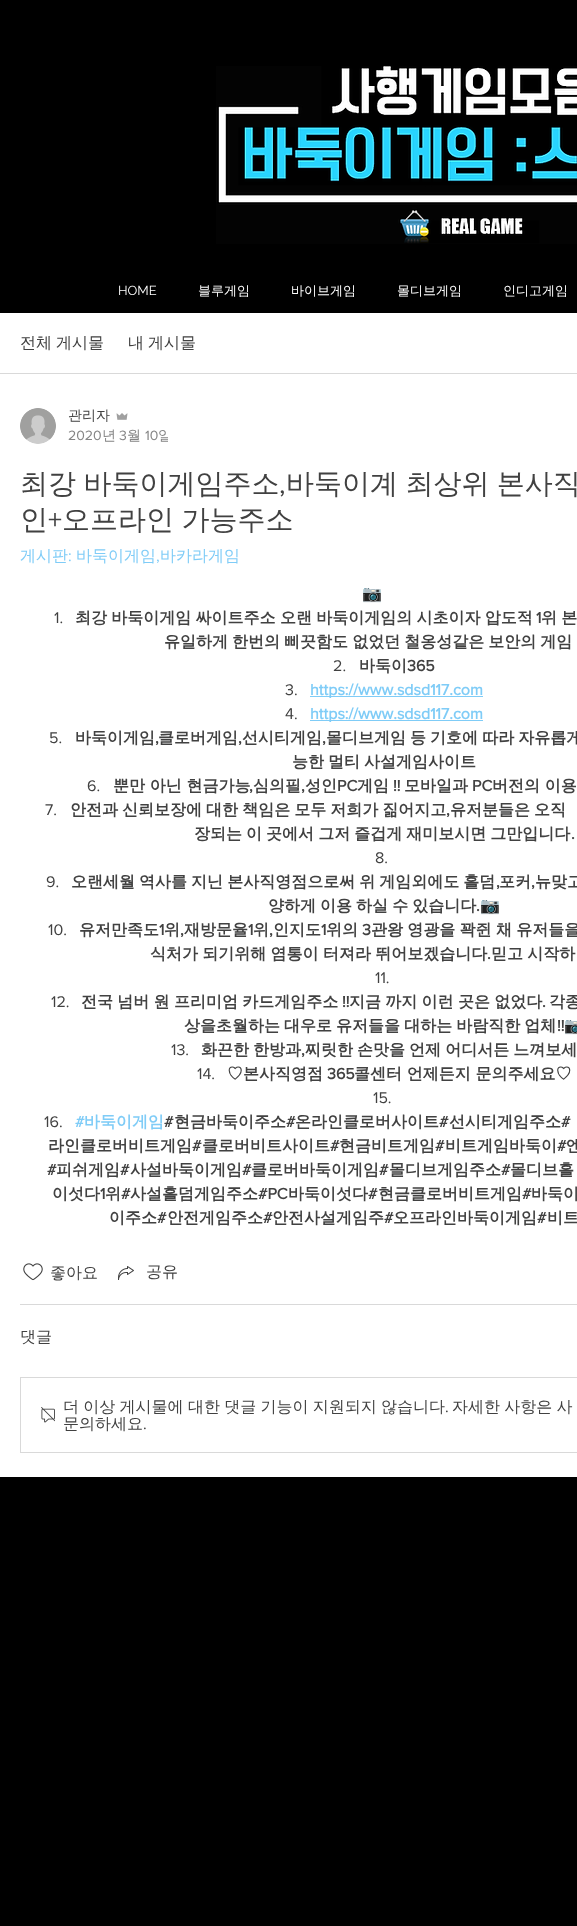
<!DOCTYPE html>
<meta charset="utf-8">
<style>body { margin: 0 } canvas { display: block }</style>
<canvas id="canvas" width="577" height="1926"></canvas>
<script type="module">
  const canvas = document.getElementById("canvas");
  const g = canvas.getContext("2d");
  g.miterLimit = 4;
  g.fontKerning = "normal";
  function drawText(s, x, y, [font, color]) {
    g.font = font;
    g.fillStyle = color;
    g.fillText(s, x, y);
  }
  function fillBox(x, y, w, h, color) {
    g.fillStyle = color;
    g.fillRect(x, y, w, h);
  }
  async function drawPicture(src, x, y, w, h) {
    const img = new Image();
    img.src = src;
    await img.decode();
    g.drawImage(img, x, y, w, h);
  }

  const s1 = ["13px Raleway", "#FFFFFF"];
  const s2 = ["500 13px WenQuanYi Zen Hei", "#FFFFFF"];
  const s3 = ["500 16px WenQuanYi Zen Hei", "#414141"];
  const s4 = ["500 14px WenQuanYi Zen Hei", "#414141"];
  const s5 = ["14px 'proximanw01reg'", "#858585"];
  const s6 = ["500 14px WenQuanYi Zen Hei", "#858585"];
  const s7 = ["500 28px WenQuanYi Zen Hei", "#414141"];
  const s8 = ["28px 'proximanw01reg'", "#414141"];
  const s9 = ["500 16px WenQuanYi Zen Hei", "#7FCCF7"];
  const s10 = ["16px 'proximanw01reg'", "#7FCCF7"];
  const s11 = ["16px Noto Color Emoji", "#414141"];
  const s12 = ["16px 'proximanw01reg'", "#414141"];
  const s13 = ["bold 16px WenQuanYi Zen Hei", "#414141"];
  const s14 = ["bold 16px 'proximanw01reg'", "#414141"];
  const s15 = ["bold 16px 'proximanw01reg'", "#7FCCF7"];
  const s16 = ["bold 16px Noto Color Emoji", "#414141"];
  const s17 = ["bold 16px WenQuanYi Zen Hei", "#7FCCF7"];

  fillBox(0, 0, 577, 1926, "#000000");
  await drawPicture("pic1.png", 216, 66, 361, 178);
  drawText("HOME", 118, 295, s1);
  drawText("블루게임", 198, 295, s2);
  drawText("바이브게임", 291, 295, s2);
  drawText("몰디브게임", 397, 295, s2);
  drawText("인디고게임", 503, 295, s2);
  fillBox(0, 313, 577, 1164, "#FFFFFF");
  fillBox(0, 373, 577, 1, "#D9D9D9");
  g.wordSpacing = "-0.75px";
  drawText("전체 게시물", 20, 348, s3);
  drawText("내 게시물", 128, 348, s3);
  await drawPicture("pic2.png", 20, 408, 36, 36);
  g.wordSpacing = "0px";
  drawText("관리자", 68, 420, s4);
  await drawPicture("pic3.png", 116, 413, 12, 7);
  drawText("2020", 68, 440, s5);
  drawText("년", 102, 440, s6);
  drawText("3", 119, 440, s5);
  drawText("월", 127, 440, s6);
  drawText("10", 145, 440, s5);
  g.save();
  g.beginPath();
  g.rect(56, 406, 112, 40);
  g.clip();
  drawText("일", 158, 440, s6);
  g.restore();
  g.wordSpacing = "-1px";
  drawText("최강 바둑이게임주소", 20, 493, s7);
  g.wordSpacing = "0px";
  drawText(",", 279, 493, s8);
  g.wordSpacing = "-1px";
  drawText("바둑이계 최상위 본사직", 286, 493, s7);
  g.wordSpacing = "0px";
  drawText("인", 20, 529, s7);
  drawText("+", 48, 529, s8);
  g.wordSpacing = "-1px";
  drawText("오프라인 가능주소", 62, 529, s7);
  g.wordSpacing = "0px";
  drawText("게시판", 20, 561, s9);
  drawText(":", 68, 561, s10);
  drawText("바둑이게임", 76, 561, s9);
  drawText(",", 156, 561, s10);
  drawText("바카라게임", 160, 561, s9);
  drawText("📷", 362, 599, s11);
  drawText("1.", 54, 623, s12);
  g.wordSpacing = "-0.5px";
  drawText("최강 바둑이게임 싸이트주소 오랜 바둑이게임의 시초이자 압도적", 75, 623, s13);
  g.wordSpacing = "0px";
  drawText("1", 536, 623, s14);
  g.wordSpacing = "-0.5px";
  drawText("위 본", 541, 623, s13);
  g.wordSpacing = "-0.75px";
  drawText("유일하게 한번의 삐끗함도 없었던 철옹성같은 보안의 게임", 164, 647, s13);
  g.wordSpacing = "0px";
  drawText("2.", 333, 671, s12);
  drawText("바둑이", 359, 671, s13);
  drawText("365", 407, 671, s14);
  drawText("3.", 285, 695, s12);
  fillBox(310, 696, 173, 1, "#7FCCF7");
  drawText("https://www.sdsd117.com", 310, 695, s15);
  drawText("4.", 285, 719, s12);
  fillBox(310, 720, 173, 1, "#7FCCF7");
  drawText("https://www.sdsd117.com", 310, 719, s15);
  drawText("5.", 49, 743, s12);
  drawText("바둑이게임", 75, 743, s13);
  drawText(",", 155, 743, s14);
  drawText("클로버게임", 158, 743, s13);
  drawText(",", 238, 743, s14);
  drawText("선시티게임", 242, 743, s13);
  drawText(",", 322, 743, s14);
  g.wordSpacing = "-0.75px";
  drawText("몰디브게임 등 기호에 따라 자유롭게", 326, 743, s13);
  drawText("능한 멀티 사설게임사이트", 292, 767, s13);
  g.wordSpacing = "0px";
  drawText("6.", 87, 791, s12);
  drawText("뿐만 아닌 현금가능", 113, 791, s13);
  drawText(",", 249, 791, s14);
  drawText("심의필", 253, 791, s13);
  drawText(",", 301, 791, s14);
  drawText("성인", 305, 791, s13);
  drawText("PC", 337, 791, s14);
  drawText("게임", 357, 791, s13);
  drawText("!!", 393, 791, s14);
  drawText("모바일과", 404, 791, s13);
  drawText("PC", 472, 791, s14);
  drawText("버전의 이용", 492, 791, s13);
  drawText("7.", 45, 815, s12);
  g.wordSpacing = "-0.75px";
  drawText("안전과 신뢰보장에 대한 책임은 모두 저희가 짊어지고", 70, 815, s13);
  g.wordSpacing = "0px";
  drawText(",", 446, 815, s14);
  g.wordSpacing = "-0.75px";
  drawText("유저분들은 오직", 450, 815, s13);
  drawText("장되는 이 곳에서 그저 즐겁게 재미보시면 그만입니다", 194, 839, s13);
  g.wordSpacing = "0px";
  drawText(".", 571, 839, s14);
  drawText("8.", 375, 863, s12);
  drawText("9.", 46, 887, s12);
  g.wordSpacing = "-0.75px";
  drawText("오랜세월 역사를 지닌 본사직영점으로써 위 게임외에도 홀덤", 71, 887, s13);
  g.wordSpacing = "0px";
  drawText(",", 496, 887, s14);
  drawText("포커", 499, 887, s13);
  drawText(",", 531, 887, s14);
  drawText("뉴맞고", 535, 887, s13);
  g.wordSpacing = "-0.75px";
  drawText("양하게 이용 하실 수 있습니다", 268, 911, s13);
  g.wordSpacing = "0px";
  drawText(".", 476, 911, s14);
  drawText("📷", 480, 911, s16);
  drawText("10.", 48, 935, s12);
  drawText("유저만족도", 79, 935, s13);
  drawText("1", 159, 935, s14);
  drawText("위", 164, 935, s13);
  drawText(",", 180, 935, s14);
  drawText("재방문율", 184, 935, s13);
  drawText("1", 248, 935, s14);
  drawText("위", 253, 935, s13);
  drawText(",", 269, 935, s14);
  drawText("인지도", 273, 935, s13);
  drawText("1", 321, 935, s14);
  drawText("위의", 326, 935, s13);
  drawText("3", 362, 935, s14);
  g.wordSpacing = "-0.5px";
  drawText("관왕 영광을 꽉쥔 채 유저들을", 371, 935, s13);
  drawText("식처가 되기위해 염통이 터져라 뛰어보겠습니다", 150, 959, s13);
  g.wordSpacing = "0px";
  drawText(".", 487, 959, s14);
  g.wordSpacing = "-0.5px";
  drawText("믿고 시작하", 491, 959, s13);
  g.wordSpacing = "0px";
  drawText("11.", 375, 983, s12);
  drawText("12.", 51, 1007, s12);
  g.wordSpacing = "-0.5px";
  drawText("전국 넘버 원 프리미엄 카드게임주소", 81, 1007, s13);
  g.wordSpacing = "0px";
  drawText("!!", 342, 1007, s14);
  g.wordSpacing = "-0.5px";
  drawText("지금 까지 이런 곳은 없었다", 349, 1007, s13);
  g.wordSpacing = "0px";
  drawText(".", 542, 1007, s14);
  g.wordSpacing = "-0.5px";
  drawText("각종", 549, 1007, s13);
  g.wordSpacing = "-0.75px";
  drawText("상을초월하는 대우로 유저들을 대하는 바람직한 업체", 184, 1031, s13);
  g.wordSpacing = "0px";
  drawText("!!", 557, 1031, s14);
  drawText("📷", 564, 1031, s16);
  drawText("13.", 171, 1055, s12);
  g.wordSpacing = "-0.75px";
  drawText("화끈한 한방과", 201, 1055, s13);
  g.wordSpacing = "0px";
  drawText(",", 301, 1055, s14);
  g.wordSpacing = "-0.75px";
  drawText("찌릿한 손맛을 언제 어디서든 느껴보세", 305, 1055, s13);
  g.wordSpacing = "0px";
  drawText("14.", 197, 1079, s12);
  drawText("♡본사직영점", 227, 1079, s13);
  drawText("365", 327, 1079, s14);
  drawText("콜센터 언제든지 문의주세요♡", 354, 1079, s13);
  drawText("15.", 373, 1103, s12);
  drawText("16.", 44, 1127, s12);
  drawText("#", 75, 1127, s15);
  drawText("바둑이게임", 84, 1127, s17);
  drawText("#", 164, 1127, s14);
  drawText("현금바둑이주소", 174, 1127, s13);
  drawText("#", 286, 1127, s14);
  drawText("온라인클로버사이트", 295, 1127, s13);
  drawText("#", 439, 1127, s14);
  drawText("선시티게임주소", 449, 1127, s13);
  drawText("#", 561, 1127, s14);
  drawText("라인클로버비트게임", 48, 1151, s13);
  drawText("#", 192, 1151, s14);
  drawText("클로버비트사이트", 202, 1151, s13);
  drawText("#", 330, 1151, s14);
  drawText("현금비트게임", 339, 1151, s13);
  drawText("#", 435, 1151, s14);
  drawText("비트게임바둑이", 445, 1151, s13);
  drawText("#", 557, 1151, s14);
  drawText("엔", 566, 1151, s13);
  drawText("#", 47, 1175, s14);
  drawText("피쉬게임", 56, 1175, s13);
  drawText("#", 120, 1175, s14);
  drawText("사설바둑이게임", 130, 1175, s13);
  drawText("#", 242, 1175, s14);
  drawText("클로버바둑이게임", 251, 1175, s13);
  drawText("#", 379, 1175, s14);
  drawText("몰디브게임주소", 389, 1175, s13);
  drawText("#", 501, 1175, s14);
  drawText("몰디브홀", 510, 1175, s13);
  drawText("이섯다", 52, 1199, s13);
  drawText("1", 100, 1199, s14);
  drawText("위", 105, 1199, s13);
  drawText("#", 121, 1199, s14);
  drawText("사설홀덤게임주소", 130, 1199, s13);
  drawText("#PC", 258, 1199, s14);
  drawText("바둑이섯다", 288, 1199, s13);
  drawText("#", 368, 1199, s14);
  drawText("현금클로버비트게임", 378, 1199, s13);
  drawText("#", 522, 1199, s14);
  drawText("바둑이", 531, 1199, s13);
  drawText("이주소", 109, 1223, s13);
  drawText("#", 157, 1223, s14);
  drawText("안전게임주소", 167, 1223, s13);
  drawText("#", 263, 1223, s14);
  drawText("안전사설게임주", 272, 1223, s13);
  drawText("#", 384, 1223, s14);
  drawText("오프라인바둑이게임", 393, 1223, s13);
  drawText("#", 537, 1223, s14);
  drawText("비트", 547, 1223, s13);
  await drawPicture("pic4.png", 23, 1263, 20, 18);
  drawText("좋아요", 50, 1278, s3);
  await drawPicture("pic5.png", 118, 1266, 16, 14);
  drawText("공유", 146, 1277, s3);
  fillBox(20, 1304, 557, 1, "#D9D9D9");
  drawText("댓글", 20, 1342, s3);
  g.strokeStyle = "#D9D9D9";
  g.strokeRect(20.5, 1377.5, 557, 75);
  await drawPicture("pic6.png", 41, 1407, 14, 16);
  g.wordSpacing = "-0.5px";
  drawText("더 이상 게시물에 대한 댓글 기능이 지원되지 않습니다", 63, 1412, s3);
  g.wordSpacing = "0px";
  drawText(".", 445, 1412, s12);
  g.wordSpacing = "-0.5px";
  drawText("자세한 사항은 사", 452, 1412, s3);
  g.wordSpacing = "0px";
  drawText("문의하세요", 63, 1429, s3);
  drawText(".", 143, 1429, s12);
</script>
